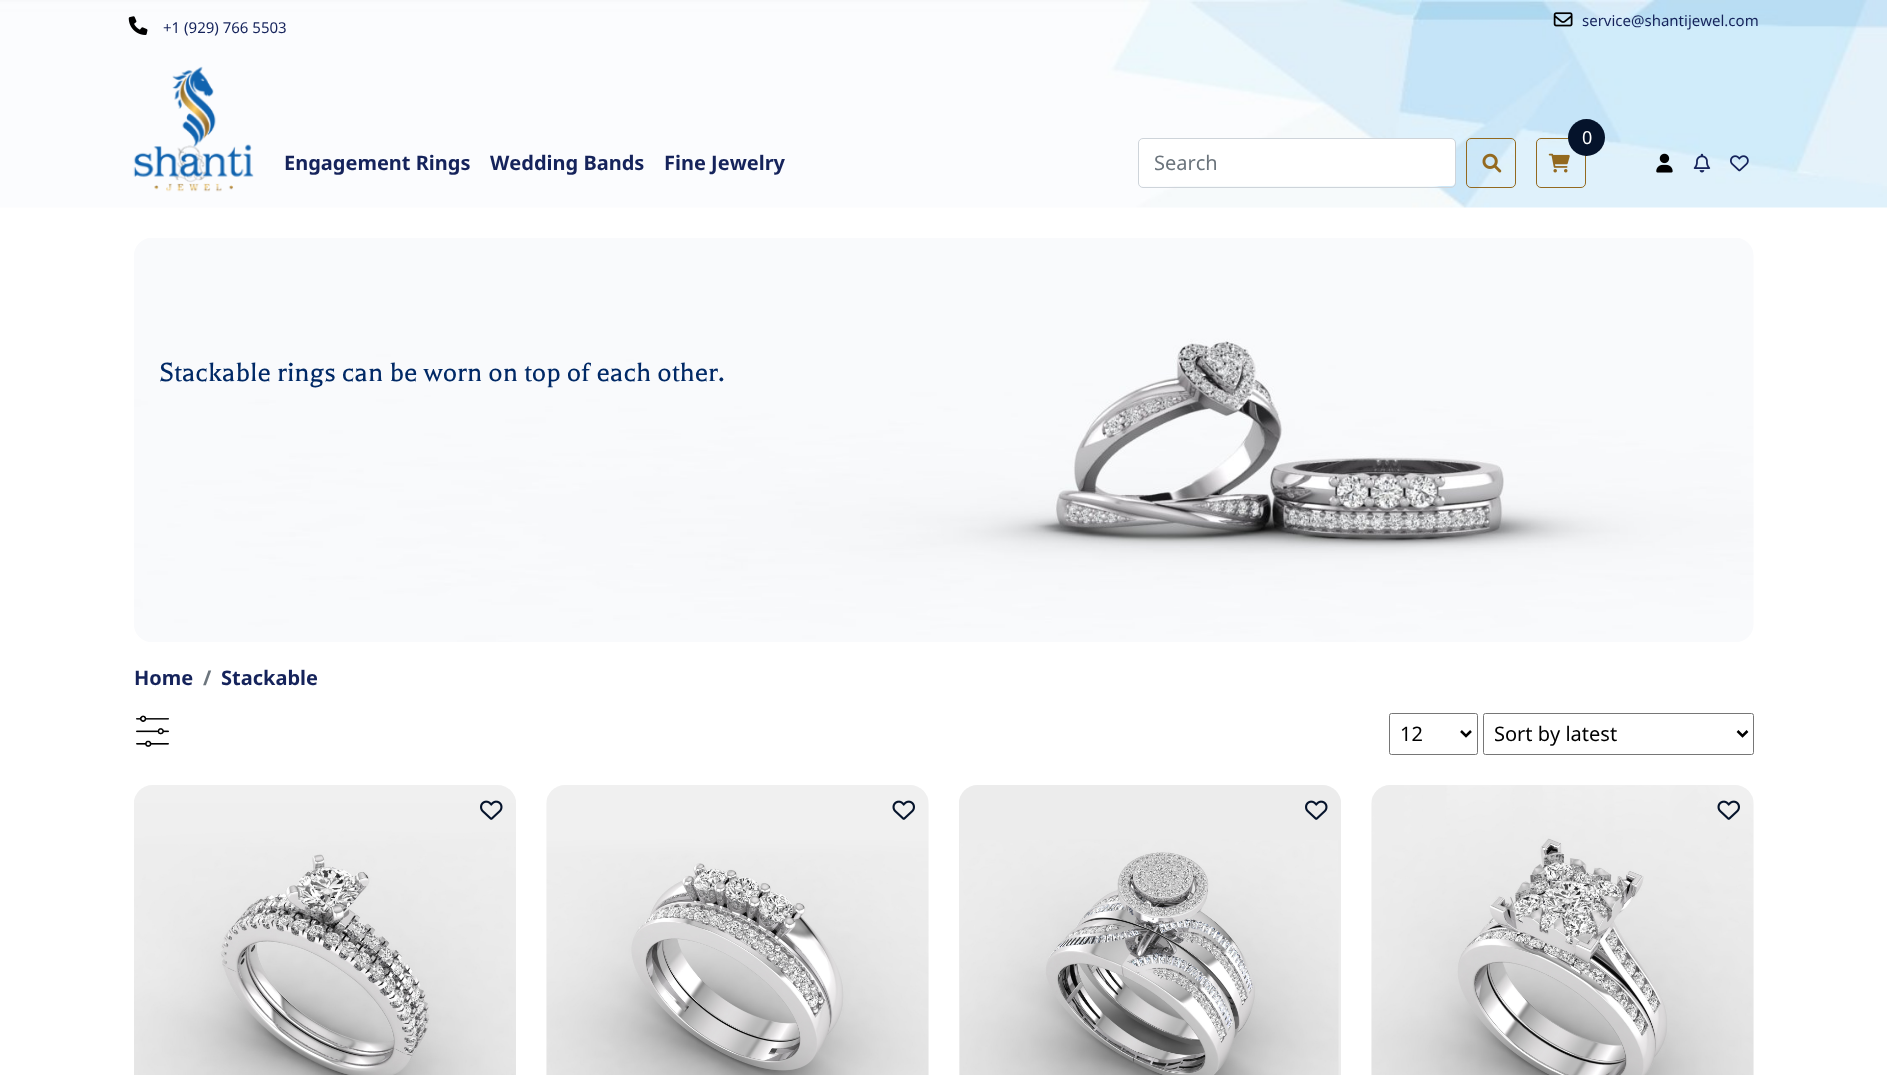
<!DOCTYPE html>
<meta charset="utf-8">
<style>body { margin: 0 } canvas { display: block }</style>
<canvas id="canvas" width="1887" height="1075"></canvas>
<script type="module">
  const canvas = document.getElementById("canvas");
  const g = canvas.getContext("2d");
  g.miterLimit = 4;
  g.fontKerning = "none";
  function drawText(s, x, y, [font, color]) {
    g.font = font;
    g.fillStyle = color;
    g.fillText(s, x, y);
  }
  function fillBox(x, y, w, h, color) {
    g.fillStyle = color;
    g.fillRect(x, y, w, h);
  }
  function fillRounded(x, y, w, h, r, color) {
    g.fillStyle = color;
    g.beginPath();
    g.roundRect(x, y, w, h, r);
    g.fill();
  }
  async function drawPicture(src, x, y, w, h) {
    const img = new Image();
    img.src = src;
    await img.decode();
    g.drawImage(img, x, y, w, h);
  }

  const s1 = ["15px Noto Sans", "#15235B"];
  const s2 = ["bold 20px Noto Sans", "#15235B"];
  const s3 = ["18px Noto Sans", "#FFFFFF"];
  const s4 = ["20px Noto Sans", "#6C757D"];
  const s5 = ["30px Balthazar", "#002966"];
  const s6 = ["bold 20px Noto Sans", "#6C757D"];
  const s7 = ["20px Noto Sans", "#000000"];

  fillBox(0, 0, 1887, 1075, "#FFFFFF");
  await drawPicture("pic1.png", 0, 0, 1887, 208);
  await drawPicture("pic2.png", 128, 16, 20, 19);
  drawText("+1 (929) 766 5503", 163, 33, s1);
  await drawPicture("pic3.png", 1553, 12, 20, 15);
  drawText("service@shantijewel.com", 1582, 26, s1);
  await drawPicture("pic4.png", 133, 66, 121, 126);
  drawText("Engagement Rings", 284, 170, s2);
  drawText("Wedding Bands", 490, 170, s2);
  drawText("Fine Jewelry", 664, 170, s2);
  g.beginPath();
  g.roundRect(1536.5, 138.5, 49, 49, 4.5);
  g.strokeStyle = "#93691F";
  g.stroke();
  await drawPicture("pic5.png", 1548, 153, 22, 20);
  g.fillStyle = "#05132B";
  g.beginPath();
  g.arc(1586.5, 137.5, 18.5, 0, Math.PI * 2);
  g.fill();
  drawText("0", 1582, 144, s3);
  fillRounded(1139, 139, 316, 47, 4, "#FFFFFF");
  g.beginPath();
  g.roundRect(1138.5, 138.5, 317, 49, 4.5);
  g.strokeStyle = "#CED4DA";
  g.stroke();
  drawText("Search", 1154, 170, s4);
  g.beginPath();
  g.roundRect(1466.5, 138.5, 49, 49, 4.5);
  g.strokeStyle = "#93691F";
  g.stroke();
  await drawPicture("pic6.png", 1482, 153, 20, 20);
  await drawPicture("pic7.png", 1656, 153, 17, 20);
  await drawPicture("pic8.png", 1693, 153, 18, 20);
  await drawPicture("pic9.png", 1730, 155, 19, 17);
  await drawPicture("pic10.png", 134, 238, 1620, 404);
  drawText("Stackable rings can be worn on top of each other.", 159, 381, s5);
  drawText("Home", 134, 685, s2);
  drawText("/", 203, 685, s6);
  drawText("Stackable", 221, 685, s2);
  await drawPicture("pic11.png", 136, 715, 33, 32);
  g.beginPath();
  g.roundRect(1389.5, 713.5, 88, 41, 2);
  g.strokeStyle = "#767676";
  g.stroke();
  g.beginPath();
  g.moveTo(1461, 731);
  g.lineTo(1466, 736);
  g.lineTo(1471, 731);
  g.strokeStyle = "#000000";
  g.lineWidth = 2.5;
  g.stroke();
  drawText("12", 1400, 741, s7);
  g.beginPath();
  g.roundRect(1483.5, 713.5, 270, 41, 2);
  g.strokeStyle = "#767676";
  g.lineWidth = 1;
  g.stroke();
  g.beginPath();
  g.moveTo(1737.5, 731);
  g.lineTo(1742.5, 736);
  g.lineTo(1747.5, 731);
  g.strokeStyle = "#000000";
  g.lineWidth = 2.5;
  g.stroke();
  drawText("Sort by latest", 1494, 741, s7);
  await drawPicture("pic12.png", 134, 785, 382, 290);
  await drawPicture("pic13.png", 480, 800, 23, 20);
  await drawPicture("pic14.png", 546, 785, 383, 290);
  await drawPicture("pic15.png", 892, 800, 23, 20);
  await drawPicture("pic16.png", 959, 785, 382, 290);
  await drawPicture("pic17.png", 1305, 800, 23, 20);
  await drawPicture("pic18.png", 1371, 785, 383, 290);
  await drawPicture("pic19.png", 1717, 800, 23, 20);
</script>
